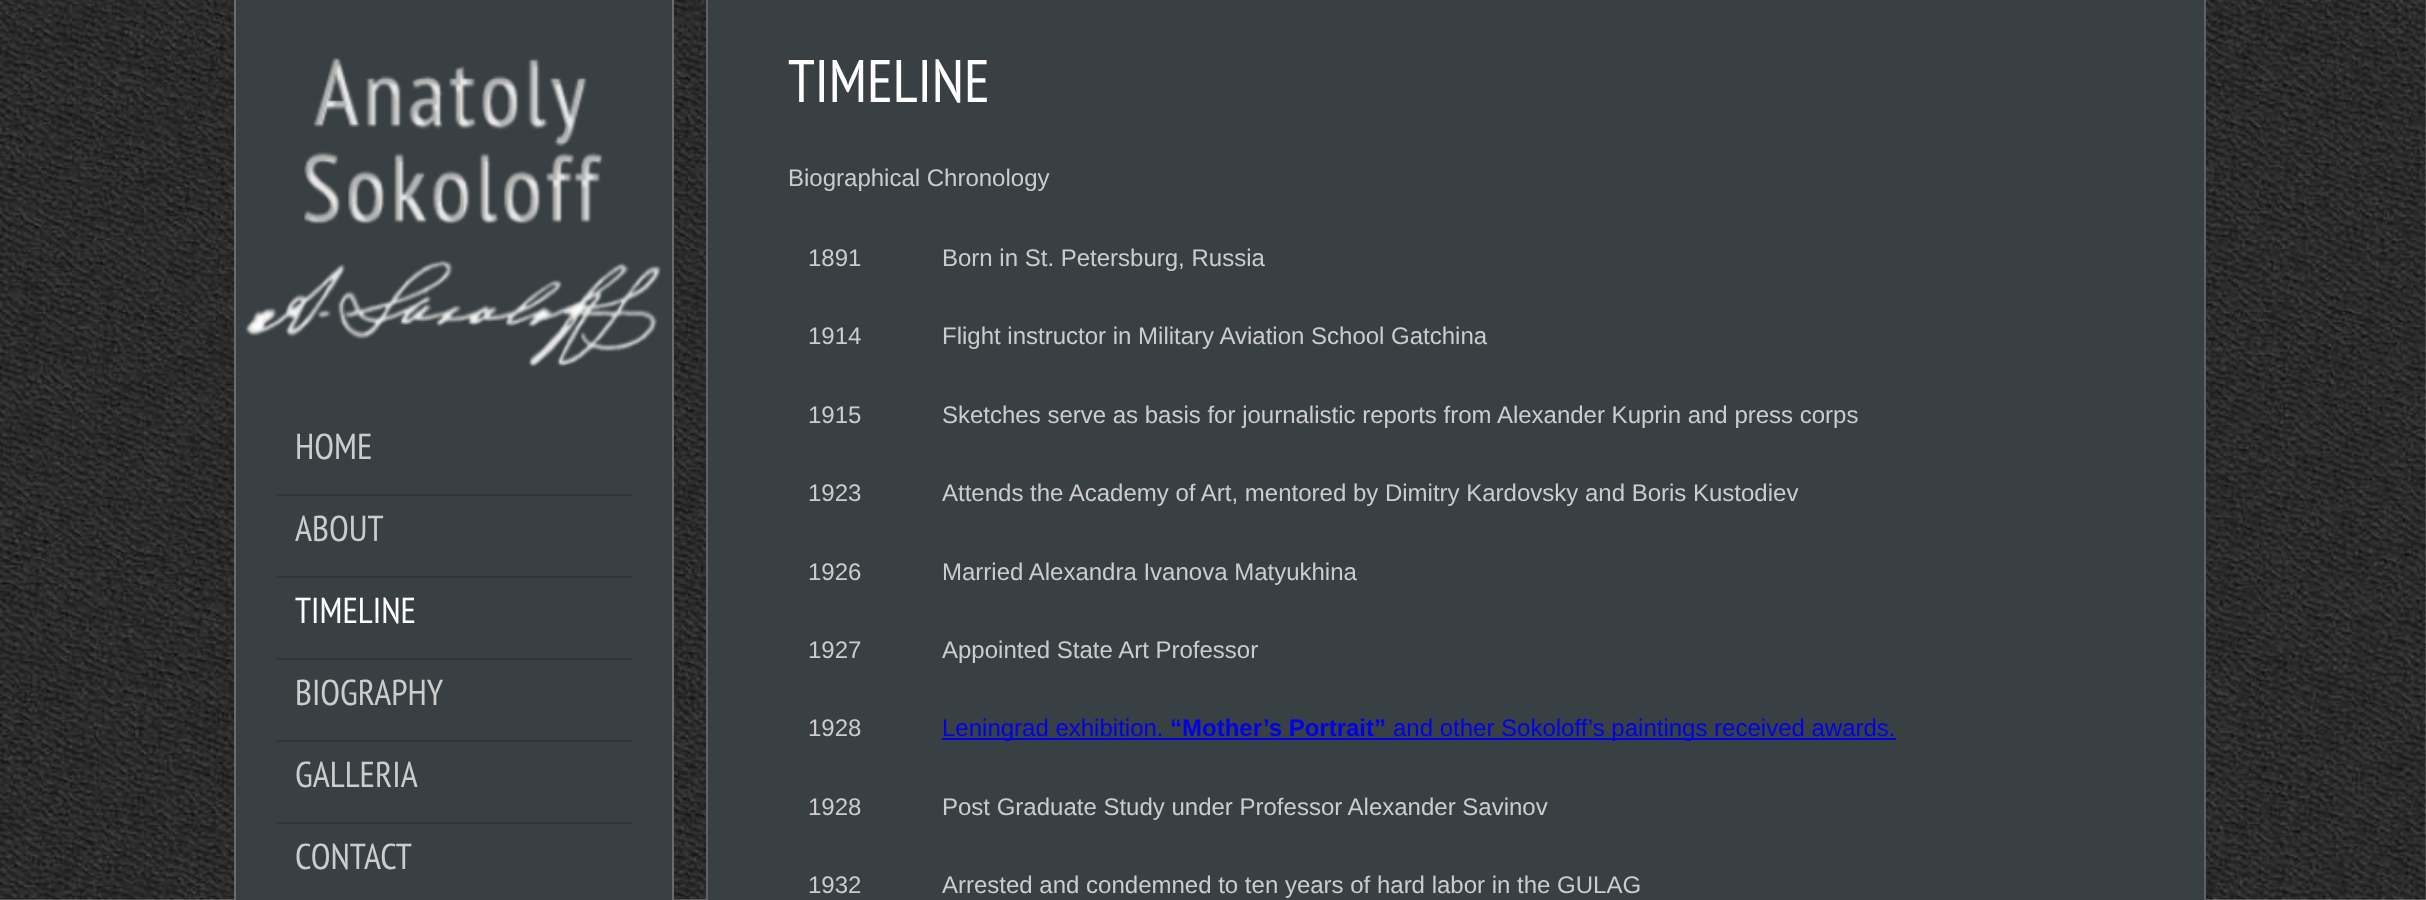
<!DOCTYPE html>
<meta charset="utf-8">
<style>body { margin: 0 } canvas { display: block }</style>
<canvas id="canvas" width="2426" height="900"></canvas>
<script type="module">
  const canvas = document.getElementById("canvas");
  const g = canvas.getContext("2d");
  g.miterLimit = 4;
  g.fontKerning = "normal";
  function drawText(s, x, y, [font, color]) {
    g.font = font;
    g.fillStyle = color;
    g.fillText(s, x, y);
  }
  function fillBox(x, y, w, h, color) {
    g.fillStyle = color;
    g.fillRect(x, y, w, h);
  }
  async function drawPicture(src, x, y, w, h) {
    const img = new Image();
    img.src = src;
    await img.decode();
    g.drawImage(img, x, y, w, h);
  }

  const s1 = ["36px PT Sans Narrow", "#CCCCCC"];
  const s2 = ["36px PT Sans Narrow", "#FFFFFF"];
  const s3 = ["60px PT Sans Narrow", "#FFFFFF"];
  const s4 = ["24px Liberation Sans", "#CCCCCC"];
  const s5 = ["24px Liberation Sans", "#0000EE"];
  const s6 = ["bold 24px Liberation Sans", "#0000EE"];

  fillBox(0, 0, 2426, 900, "#FFFFFF");
  await drawPicture("pic1.png", 0, 0, 2426, 900);
  fillBox(236, 0, 436, 900, "#394044");
  fillBox(672, 0, 2, 900, "#6F6B6B");
  fillBox(234, 0, 2, 900, "#6F6B6B");
  await drawPicture("pic2.png", 245, 57, 416, 310);
  fillBox(276, 494, 356, 2, "#343434");
  drawText("HOME", 295, 459, s1);
  fillBox(276, 576, 356, 2, "#343434");
  drawText("ABOUT", 295, 541, s1);
  fillBox(276, 658, 356, 2, "#343434");
  drawText("TIMELINE", 295, 623, s2);
  fillBox(276, 740, 356, 2, "#343434");
  drawText("BIOGRAPHY", 295, 705, s1);
  fillBox(276, 822, 356, 2, "#343434");
  drawText("GALLERIA", 295, 787, s1);
  drawText("CONTACT", 295, 869, s1);
  fillBox(708, 0, 1496, 900, "#394044");
  fillBox(2204, 0, 2, 900, "#5C6265");
  fillBox(706, 0, 2, 900, "#5C6265");
  drawText("TIMELINE", 788, 102, s3);
  drawText("Biographical Chronology", 788, 186, s4);
  drawText("1891", 808, 266, s4);
  drawText("Born in St. Petersburg, Russia", 942, 266, s4);
  drawText("1914", 808, 344, s4);
  drawText("Flight instructor in Military Aviation School Gatchina", 942, 344, s4);
  drawText("1915", 808, 423, s4);
  drawText("Sketches serve as basis for journalistic reports from Alexander Kuprin and press corps", 942, 423, s4);
  drawText("1923", 808, 501, s4);
  drawText("Attends the Academy of Art, mentored by Dimitry Kardovsky and Boris Kustodiev", 942, 501, s4);
  drawText("1926", 808, 580, s4);
  drawText("Married Alexandra Ivanova Matyukhina", 942, 580, s4);
  drawText("1927", 808, 658, s4);
  drawText("Appointed State Art Professor", 942, 658, s4);
  drawText("1928", 808, 736, s4);
  fillBox(942, 738, 954, 2, "#0000EE");
  drawText("Leningrad exhibition.", 942, 736, s5);
  drawText("“Mother’s Portrait”", 1170, 736, s6);
  drawText("and other Sokoloff’s paintings received awards.", 1393, 736, s5);
  drawText("1928", 808, 815, s4);
  drawText("Post Graduate Study under Professor Alexander Savinov", 942, 815, s4);
  drawText("1932", 808, 893, s4);
  drawText("Arrested and condemned to ten years of hard labor in the GULAG", 942, 893, s4);
</script>
